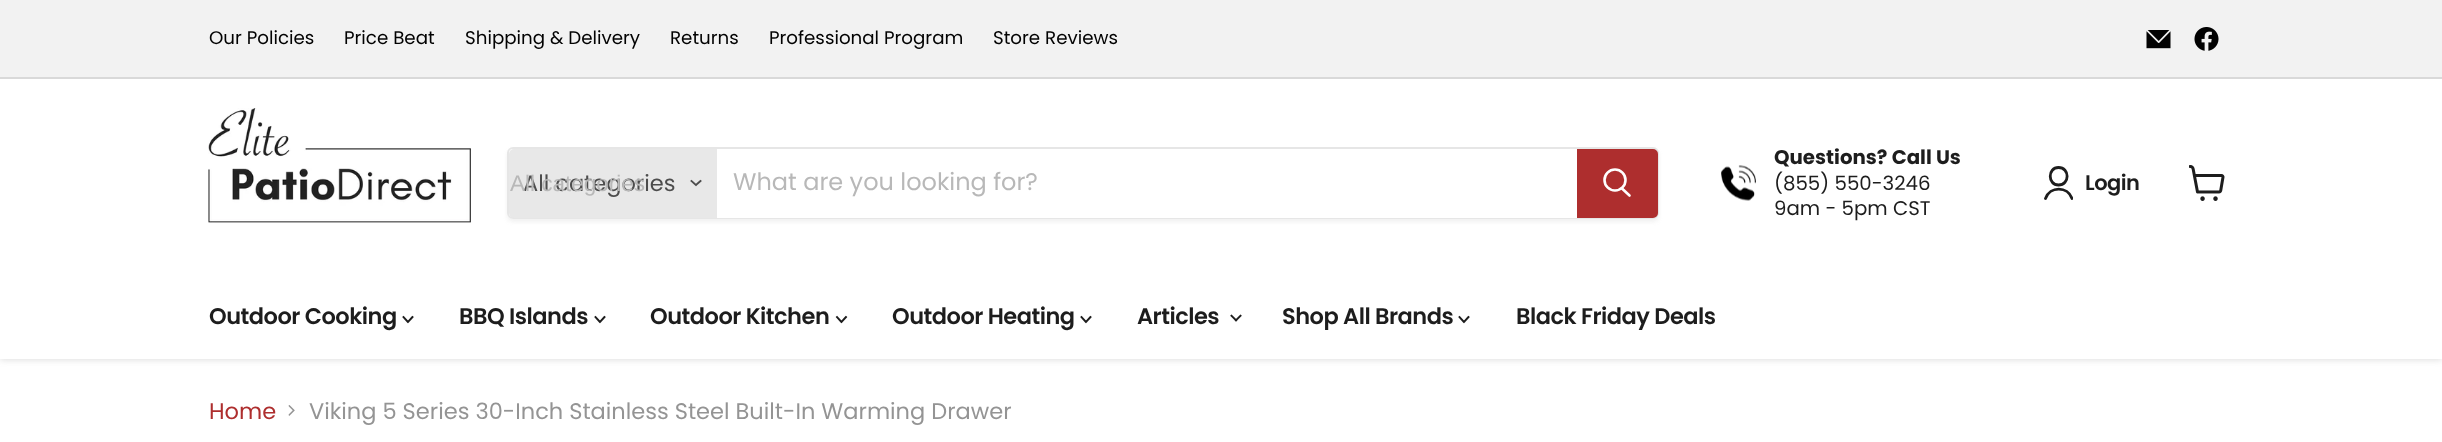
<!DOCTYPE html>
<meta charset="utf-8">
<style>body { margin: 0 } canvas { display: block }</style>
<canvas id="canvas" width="2442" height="442"></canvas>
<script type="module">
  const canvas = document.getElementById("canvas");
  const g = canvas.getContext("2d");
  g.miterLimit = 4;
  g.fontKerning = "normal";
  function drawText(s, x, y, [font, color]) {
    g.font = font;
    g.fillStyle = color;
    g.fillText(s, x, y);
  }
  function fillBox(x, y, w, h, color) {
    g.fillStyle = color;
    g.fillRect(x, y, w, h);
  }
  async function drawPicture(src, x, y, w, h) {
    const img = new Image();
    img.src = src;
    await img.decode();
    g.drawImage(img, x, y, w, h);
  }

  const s1 = ["18.25px Poppins", "#020202"];
  const s2 = ["22.5px Poppins", "#4D4D4D"];
  const s3 = ["22.5px Liberation Sans", "#B8B8B8"];
  const s4 = ["24px Poppins", "#B8B8B8"];
  const s5 = ["bold 19.75px Poppins", "#1D1D1D"];
  const s6 = ["19.75px Poppins", "#1D1D1D"];
  const s7 = ["600 21px Poppins", "#1D1D1D"];
  const s8 = ["600 22.5px Poppins", "#1D1D1D"];
  const s9 = ["22.5px Poppins", "#AE2E2E"];
  const s10 = ["22.5px Poppins", "#949494"];

  fillBox(0, 0, 2442, 442, "#FFFFFF");
  g.fillStyle = "rgba(128, 128, 128, 0.25)";
  g.filter = "blur(3px)";
  g.beginPath();
  g.rect(0, 80, 2442, 280);
  g.fill();
  g.filter = "none";
  fillBox(0, 0, 2442, 77, "#F2F2F2");
  fillBox(0, 77, 2442, 2, "#D9D9D9");
  drawText("Our Policies", 209, 44, s1);
  drawText("Price Beat", 344, 44, s1);
  drawText("Shipping & Delivery", 465, 44, s1);
  drawText("Returns", 670, 44, s1);
  drawText("Professional Program", 769, 44, s1);
  drawText("Store Reviews", 993, 44, s1);
  await drawPicture("pic1.png", 2146, 30, 25, 19);
  await drawPicture("pic2.png", 2194, 27, 25, 24);
  fillBox(0, 79, 2442, 280, "#FFFFFF");
  await drawPicture("pic3.png", 208, 108, 263, 115);
  g.save();
  g.beginPath();
  g.moveTo(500, 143);
  g.lineTo(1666, 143);
  g.lineTo(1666, 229);
  g.lineTo(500, 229);
  g.closePath();
  g.moveTo(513, 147);
  g.lineTo(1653, 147);
  g.bezierCurveTo(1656.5, 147, 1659, 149.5, 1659, 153);
  g.lineTo(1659, 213);
  g.bezierCurveTo(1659, 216.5, 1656.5, 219, 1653, 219);
  g.lineTo(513, 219);
  g.bezierCurveTo(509.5, 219, 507, 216.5, 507, 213);
  g.lineTo(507, 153);
  g.bezierCurveTo(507, 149.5, 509.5, 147, 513, 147);
  g.closePath();
  g.clip("evenodd");
  g.fillStyle = "rgba(128, 128, 128, 0.11)";
  g.filter = "blur(2px)";
  g.beginPath();
  g.roundRect(507, 150, 1152, 72, 6);
  g.fill();
  g.filter = "none";
  g.restore();
  g.beginPath();
  g.roundRect(508, 148, 1150, 70, 5);
  g.strokeStyle = "rgba(128, 128, 128, 0.2)";
  g.lineWidth = 2;
  g.stroke();
  g.fillStyle = "#E8E8E8";
  g.beginPath();
  g.roundRect(509, 149, 208, 69, [5, 0, 0, 5]);
  g.fill();
  drawText("All categories", 523, 191, s2);
  drawText("All categories", 510, 191, s3);
  g.beginPath();
  g.moveTo(696, 185);
  g.lineTo(700.5, 181);
  g.moveTo(696, 185);
  g.lineTo(691.5, 181);
  g.strokeStyle = "#4D4D4D";
  g.lineWidth = 1.9;
  g.lineCap = "square";
  g.stroke();
  fillBox(717, 217, 860, 1, "#FFFFFF");
  drawText("What are you looking for?", 733, 190, s4);
  g.fillStyle = "#AE2E2E";
  g.beginPath();
  g.roundRect(1578, 150, 79, 67, [0, 4, 4, 0]);
  g.fill();
  g.strokeStyle = "#AE2E2E";
  g.lineWidth = 2;
  g.stroke();
  g.beginPath();
  g.moveTo(1629.5, 195.5);
  g.lineTo(1622, 188.5);
  g.strokeStyle = "#FFFFFF";
  g.lineWidth = 2.6;
  g.lineCap = "round";
  g.stroke();
  g.beginPath();
  g.arc(1615, 180, 10.5, 0, Math.PI * 2);
  g.stroke();
  await drawPicture("pic4.png", 1721, 165, 35, 36);
  drawText("Questions? Call Us", 1774, 164, s5);
  drawText("(855) 550-3246", 1774, 190, s6);
  drawText("9am - 5pm CST", 1774, 215, s6);
  g.beginPath();
  g.moveTo(2058.5, 185);
  g.bezierCurveTo(2070, 185, 2070, 167.5, 2058.5, 167.5);
  g.bezierCurveTo(2047.5, 167.5, 2047.5, 185, 2058.5, 185);
  g.closePath();
  g.strokeStyle = "#1D1D1D";
  g.lineWidth = 2.8;
  g.lineJoin = "round";
  g.stroke();
  g.save();
  g.beginPath();
  g.rect(2043, 165, 30, 36);
  g.clip();
  g.beginPath();
  g.moveTo(2072, 198.5);
  g.bezierCurveTo(2067.5, 186, 2050, 186, 2045.5, 198.5);
  g.stroke();
  g.restore();
  g.letterSpacing = "-0.5px";
  drawText("Login", 2085, 190, s7);
  await drawPicture("pic5.png", 2189, 165, 36, 36);
  drawText("Outdoor Cooking", 209, 324, s8);
  g.beginPath();
  g.moveTo(408, 322);
  g.lineTo(412.5, 317);
  g.moveTo(408, 322);
  g.lineTo(403.5, 317);
  g.lineWidth = 1.9;
  g.lineCap = "square";
  g.lineJoin = "miter";
  g.stroke();
  drawText("BBQ Islands", 459, 324, s8);
  g.beginPath();
  g.moveTo(600, 322);
  g.lineTo(604.5, 317);
  g.moveTo(600, 322);
  g.lineTo(595.5, 317);
  g.stroke();
  drawText("Outdoor Kitchen", 650, 324, s8);
  g.beginPath();
  g.moveTo(841.5, 322);
  g.lineTo(846, 317);
  g.moveTo(841.5, 322);
  g.lineTo(837, 317);
  g.stroke();
  drawText("Outdoor Heating", 892, 324, s8);
  g.beginPath();
  g.moveTo(1086, 322);
  g.lineTo(1090.5, 317);
  g.moveTo(1086, 322);
  g.lineTo(1081.5, 317);
  g.stroke();
  drawText("Articles", 1137, 324, s8);
  await drawPicture("pic6.png", 1230, 314, 12, 8);
  drawText("Shop All Brands", 1282, 324, s8);
  g.beginPath();
  g.moveTo(1464, 322);
  g.lineTo(1468.5, 317);
  g.moveTo(1464, 322);
  g.lineTo(1459.5, 317);
  g.stroke();
  drawText("Black Friday Deals", 1516, 324, s8);
  g.letterSpacing = "0px";
  drawText("Home", 209, 419, s9);
  await drawPicture("pic7.png", 288, 405, 7, 11);
  drawText("Viking 5 Series 30-Inch Stainless Steel Built-In Warming Drawer", 309, 419, s10);
</script>
